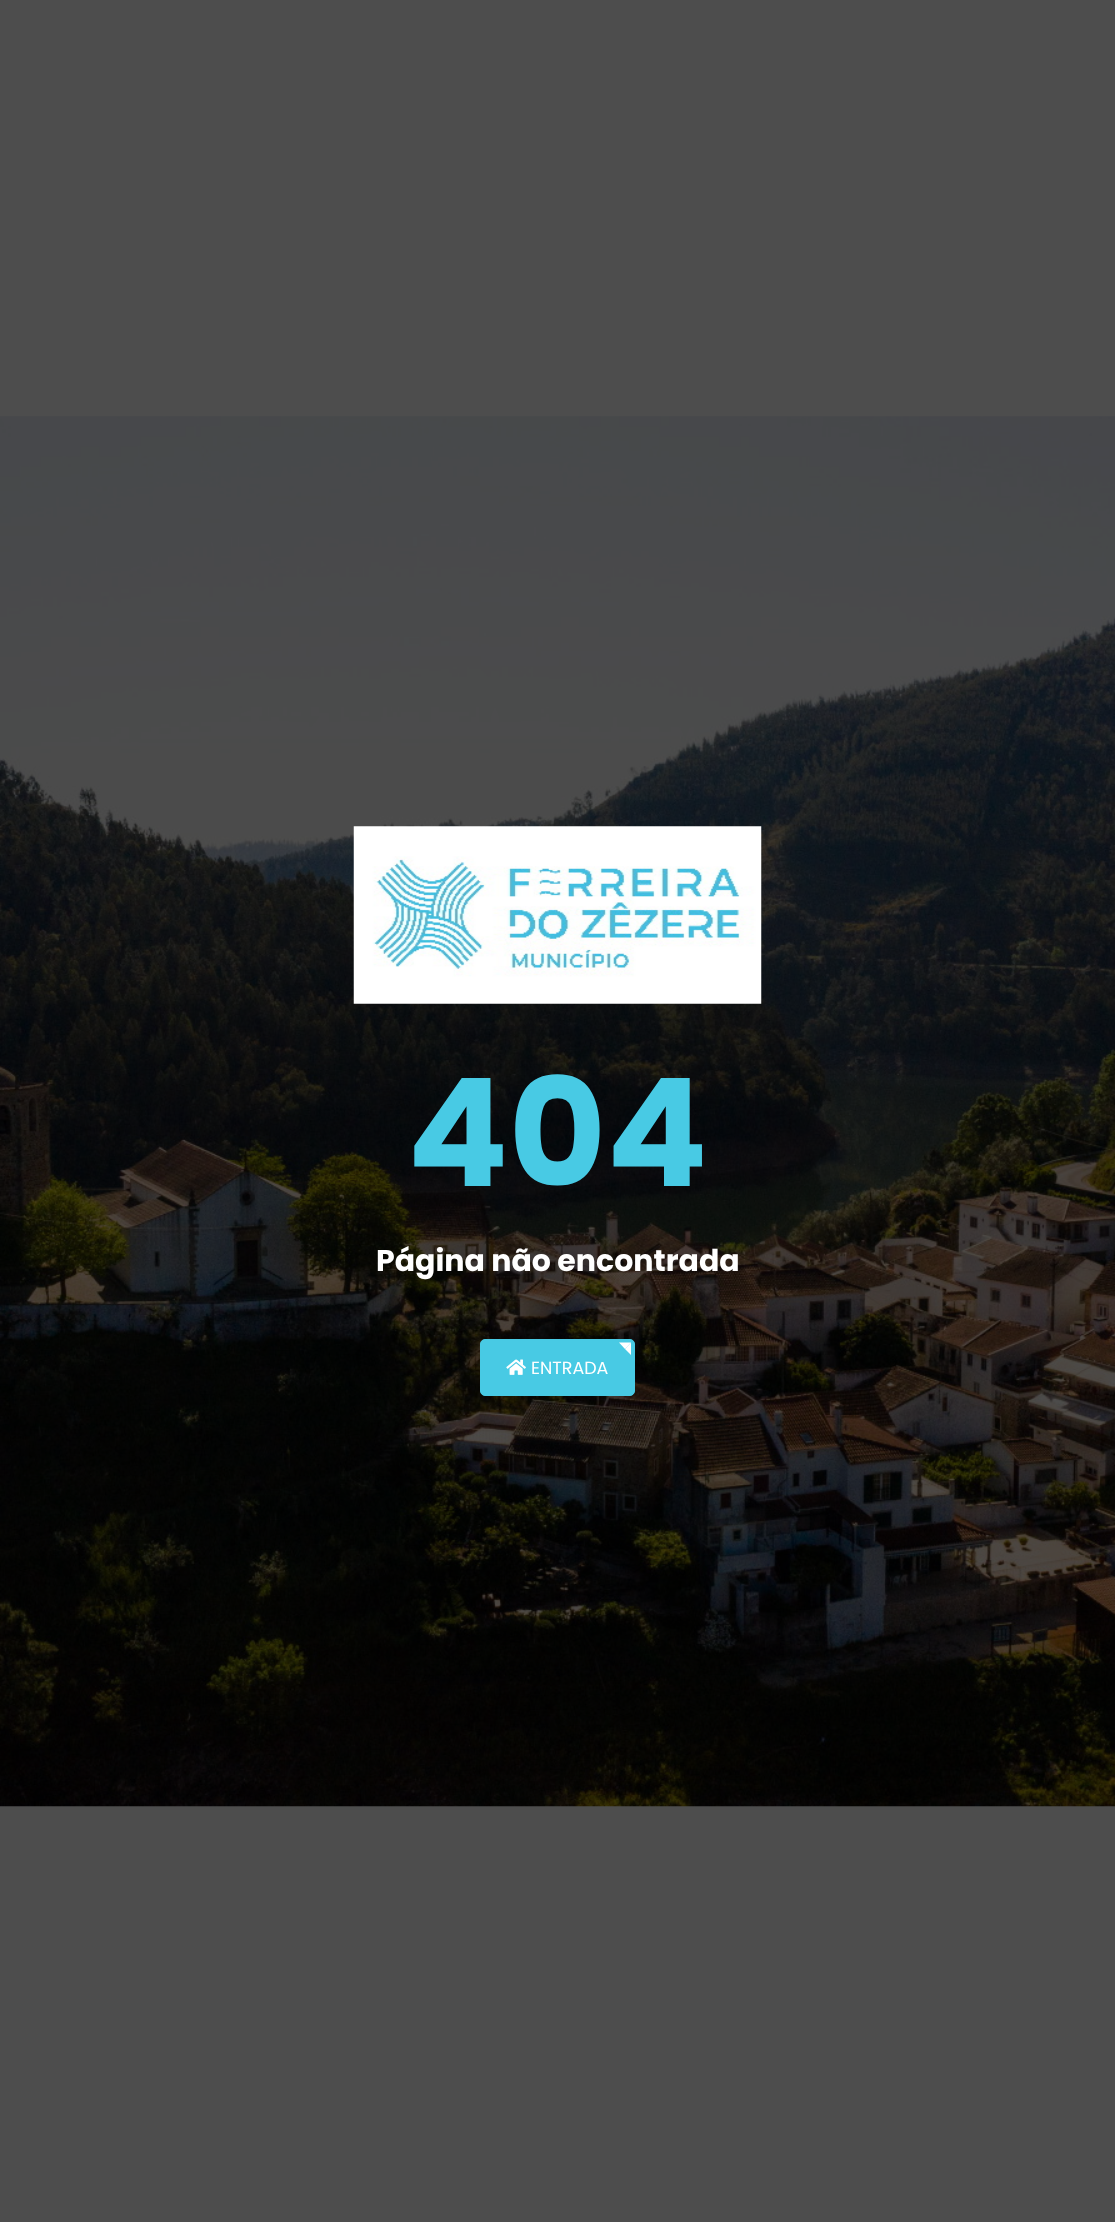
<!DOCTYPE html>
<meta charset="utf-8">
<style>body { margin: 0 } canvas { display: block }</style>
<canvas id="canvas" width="1115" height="2222"></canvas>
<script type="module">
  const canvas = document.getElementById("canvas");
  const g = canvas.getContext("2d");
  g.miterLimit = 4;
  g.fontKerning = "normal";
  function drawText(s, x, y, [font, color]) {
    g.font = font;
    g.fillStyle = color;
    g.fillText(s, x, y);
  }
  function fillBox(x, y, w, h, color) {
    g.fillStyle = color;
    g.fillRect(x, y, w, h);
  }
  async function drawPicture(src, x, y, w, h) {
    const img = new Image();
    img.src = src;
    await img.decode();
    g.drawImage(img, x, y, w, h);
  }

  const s1 = ["bold 150px Poppins", "#48CAE4"];
  const s2 = ["bold 30px Poppins", "#FFFFFF"];
  const s3 = ["17.5px Poppins", "#FFFFFF"];

  fillBox(0, 0, 1115, 2222, "#4D4D4D");
  await drawPicture("pic1.png", 0, 416, 1115, 1391);
  await drawPicture("pic2.png", 353, 826, 409, 178);
  drawText("404", 407, 1186, s1);
  drawText("Página não encontrada", 376, 1271, s2);
  g.fillStyle = "#48CAE4";
  g.beginPath();
  g.roundRect(480.5, 1339.5, 154, 56, 4.5);
  g.fill();
  g.strokeStyle = "#48CAE4";
  g.stroke();
  g.fillStyle = "#FFFFFF";
  g.beginPath();
  g.moveTo(619, 1342.5);
  g.lineTo(631, 1342.5);
  g.lineTo(625, 1349);
  g.closePath();
  g.fill();
  g.beginPath();
  g.moveTo(631, 1342.5);
  g.lineTo(631, 1355);
  g.lineTo(625, 1349);
  g.closePath();
  g.fill();
  await drawPicture("pic3.png", 506, 1359, 20, 16);
  drawText("ENTRADA", 531, 1374, s3);
</script>
